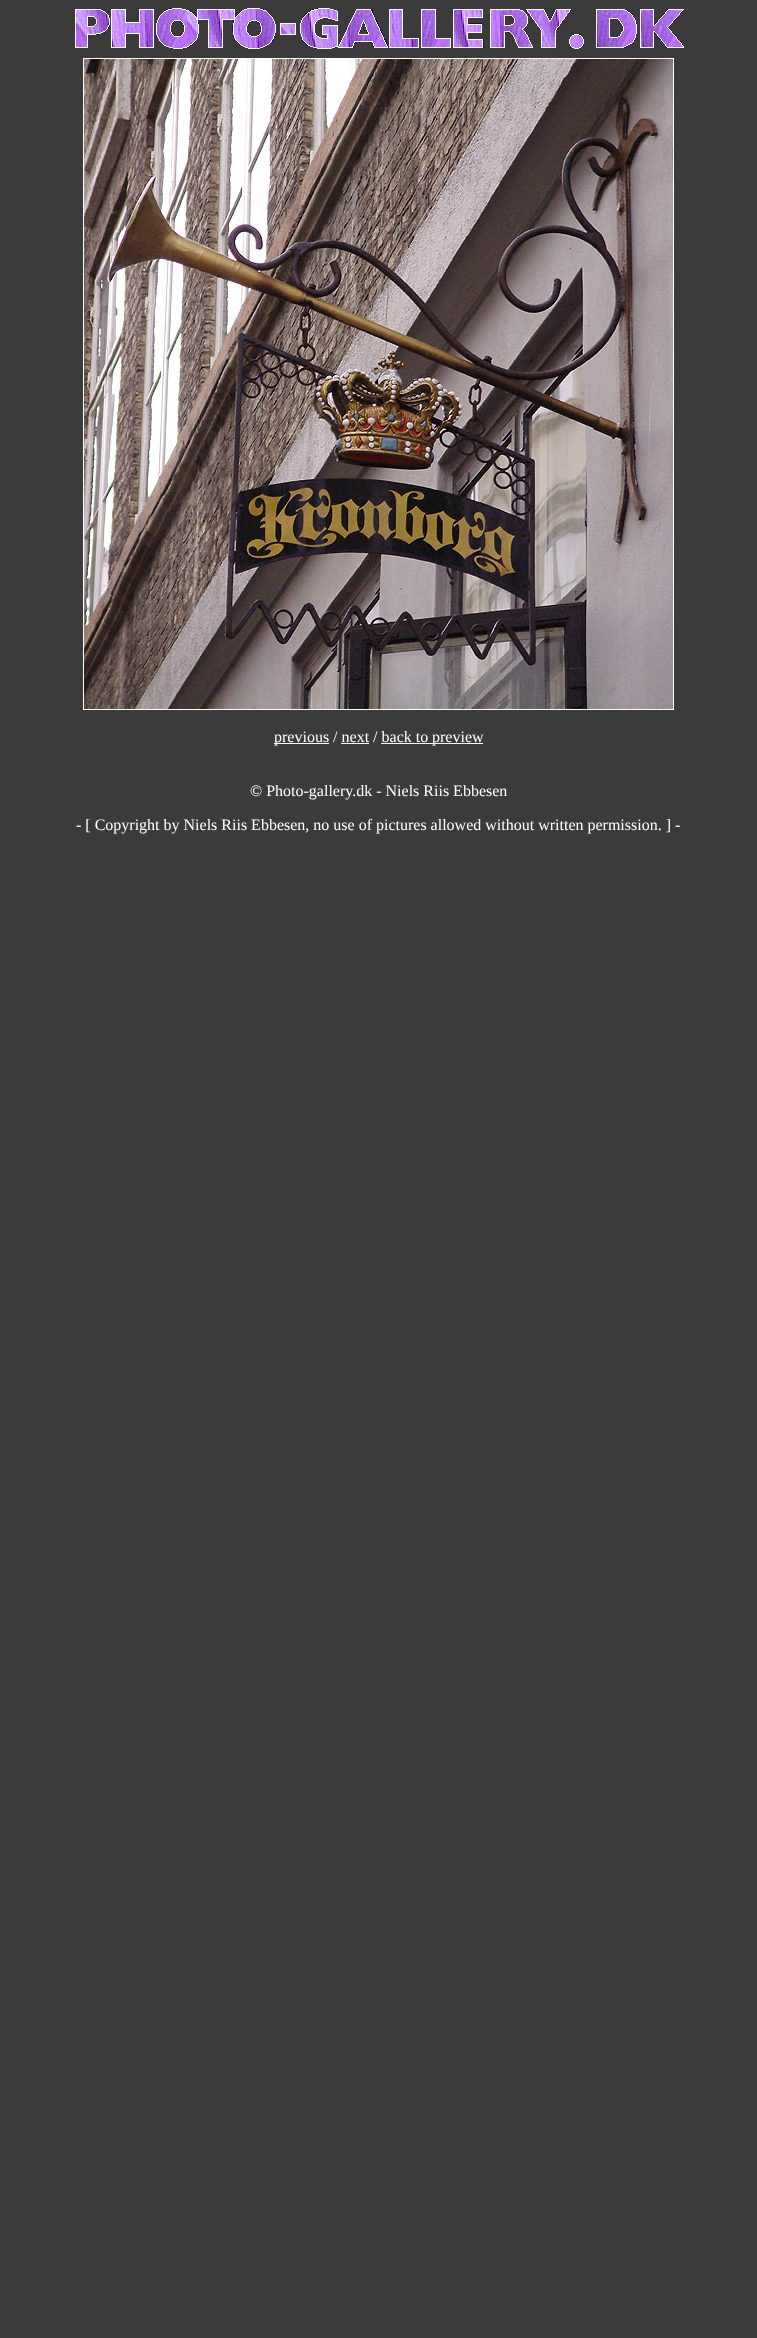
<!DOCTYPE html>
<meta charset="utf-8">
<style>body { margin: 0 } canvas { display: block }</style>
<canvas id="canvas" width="757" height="2338"></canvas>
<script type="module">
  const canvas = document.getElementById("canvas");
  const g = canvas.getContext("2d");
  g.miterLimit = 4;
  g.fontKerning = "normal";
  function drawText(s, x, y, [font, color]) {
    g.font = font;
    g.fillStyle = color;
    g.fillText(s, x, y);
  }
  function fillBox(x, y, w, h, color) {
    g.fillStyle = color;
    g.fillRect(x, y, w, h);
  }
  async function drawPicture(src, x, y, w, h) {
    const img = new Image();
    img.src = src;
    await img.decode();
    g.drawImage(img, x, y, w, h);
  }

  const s1 = ["16px Liberation Serif", "#FFFFFF"];

  fillBox(0, 0, 757, 2338, "#3B3B3B");
  await drawPicture("pic1.png", 75, 8, 609, 41);
  g.strokeStyle = "#FFFFFF";
  g.strokeRect(83.5, 58.5, 590, 651);
  await drawPicture("pic2.png", 84, 59, 589, 650);
  fillBox(274, 743, 55, 1, "#FFFFFF");
  drawText("previous / next / back to", 274, 742, s1);
  fillBox(381, 743, 102, 1, "#FFFFFF");
  drawText("preview", 432, 742, s1);
  fillBox(341, 743, 28, 1, "#FFFFFF");
  drawText("© Photo-gallery.dk - Niels Riis Ebbesen", 250, 796, s1);
  drawText("- [ Copyright by Niels Riis Ebbesen, no use of pictures allowed without written permission. ] -", 76, 830, s1);
</script>
